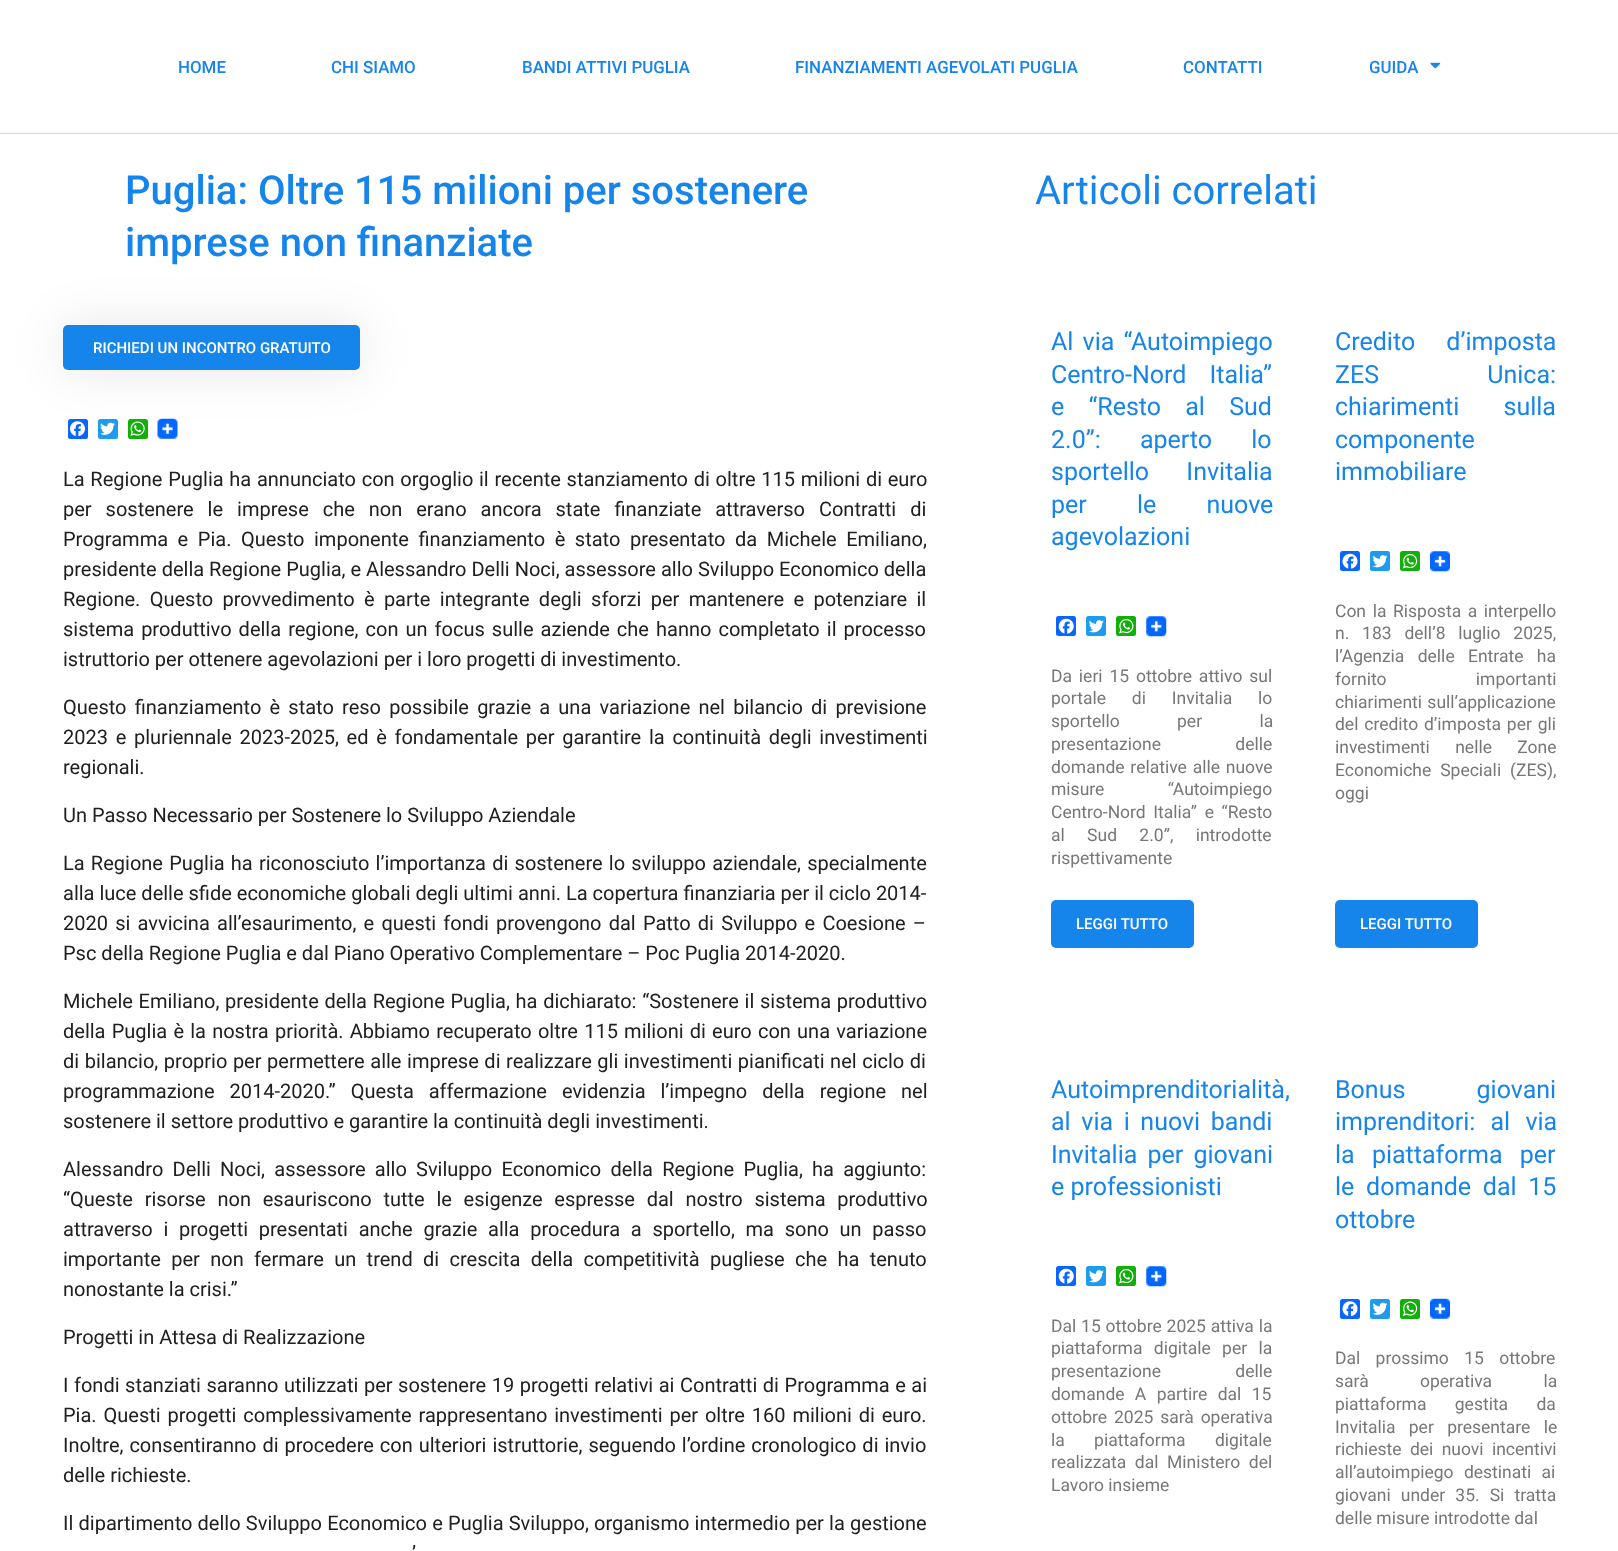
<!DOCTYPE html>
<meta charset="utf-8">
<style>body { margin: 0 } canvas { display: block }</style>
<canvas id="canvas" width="1618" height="1551"></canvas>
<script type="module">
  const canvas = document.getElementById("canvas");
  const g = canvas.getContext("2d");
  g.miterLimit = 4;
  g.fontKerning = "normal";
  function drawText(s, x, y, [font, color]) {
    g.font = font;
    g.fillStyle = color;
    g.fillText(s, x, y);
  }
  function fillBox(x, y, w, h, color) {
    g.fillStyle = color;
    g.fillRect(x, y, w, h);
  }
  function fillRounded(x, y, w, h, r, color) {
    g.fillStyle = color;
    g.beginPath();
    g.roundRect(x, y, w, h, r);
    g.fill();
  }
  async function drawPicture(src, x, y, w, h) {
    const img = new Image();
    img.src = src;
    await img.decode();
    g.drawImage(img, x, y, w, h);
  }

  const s1 = ["500 16.9px Roboto", "#1685EB"];
  const s2 = ["500 40px Roboto", "#1685EB"];
  const s3 = ["40px Roboto", "#1685EB"];
  const s4 = ["500 15px Roboto", "#FFFFFF"];
  const s5 = ["20px Roboto", "#202020"];
  const s6 = ["25px Roboto", "#1685EB"];
  const s7 = ["17.5px Roboto", "#777777"];

  fillBox(0, 0, 1618, 1551, "#FFFFFF");
  fillBox(0, 133, 1618, 1, "#D7D7D7");
  drawText("HOME", 178, 73, s1);
  drawText("CHI SIAMO", 331, 73, s1);
  drawText("BANDI ATTIVI PUGLIA", 522, 73, s1);
  drawText("FINANZIAMENTI AGEVOLATI PUGLIA", 795, 73, s1);
  drawText("CONTATTI", 1183, 73, s1);
  drawText("GUIDA", 1369, 73, s1);
  await drawPicture("pic1.png", 1430, 62, 11, 7);
  drawText("Puglia: Oltre 115 milioni per sostenere", 125, 204, s2);
  drawText("imprese non finanziate", 125, 256, s2);
  drawText("Articoli correlati", 1035, 204, s3);
  g.fillStyle = "rgba(0, 0, 0, 0.1)";
  g.filter = "blur(25px)";
  g.beginPath();
  g.roundRect(63, 325, 297, 45, 5);
  g.fill();
  g.filter = "none";
  fillRounded(63, 325, 297, 45, 5, "#1685EB");
  drawText("RICHIEDI UN INCONTRO GRATUITO", 93, 353, s4);
  fillRounded(68, 419, 20, 20, 2.5, "#0866FF");
  await drawPicture("pic2.png", 70, 421, 15, 16);
  fillRounded(98, 419, 20, 20, 2.5, "#1D9BF0");
  await drawPicture("pic3.png", 100, 422, 15, 13);
  fillRounded(128, 419, 20, 20, 2.5, "#12AF0A");
  await drawPicture("pic4.png", 130, 421, 15, 15);
  await drawPicture("pic5.png", 157, 418, 21, 21);
  g.wordSpacing = "0.75px";
  drawText("La Regione Puglia ha annunciato con orgoglio il recente stanziamento di oltre 115 milioni di euro", 63, 486, s5);
  g.wordSpacing = "9px";
  drawText("per sostenere le imprese che non erano ancora state finanziate attraverso Contratti di", 63, 516, s5);
  g.wordSpacing = "4.6px";
  drawText("Programma e Pia. Questo imponente finanziamento è stato presentato da Michele Emiliano,", 63, 546, s5);
  g.wordSpacing = "0px";
  drawText("presidente della Regione Puglia, e Alessandro Delli Noci, assessore allo Sviluppo Economico della", 63, 576, s5);
  g.wordSpacing = "4.4px";
  drawText("Regione. Questo provvedimento è parte integrante degli sforzi per mantenere e potenziare il", 63, 606, s5);
  g.wordSpacing = "2.1px";
  drawText("sistema produttivo della regione, con un focus sulle aziende che hanno completato il processo", 63, 636, s5);
  g.wordSpacing = "0px";
  drawText("istruttorio per ottenere agevolazioni per i loro progetti di investimento.", 63, 666, s5);
  g.wordSpacing = "3.25px";
  drawText("Questo finanziamento è stato reso possibile grazie a una variazione nel bilancio di previsione", 63, 714, s5);
  g.wordSpacing = "2.75px";
  drawText("2023 e pluriennale 2023-2025, ed è fondamentale per garantire la continuità degli investimenti", 63, 744, s5);
  g.wordSpacing = "0px";
  drawText("regionali.", 63, 774, s5);
  drawText("Un Passo Necessario per Sostenere lo Sviluppo Aziendale", 63, 822, s5);
  g.wordSpacing = "1.25px";
  drawText("La Regione Puglia ha riconosciuto l’importanza di sostenere lo sviluppo aziendale, specialmente", 63, 870, s5);
  g.wordSpacing = "0px";
  drawText("alla luce delle sfide economiche globali degli ultimi anni. La copertura finanziaria per il ciclo 2014-", 63, 900, s5);
  g.wordSpacing = "2.25px";
  drawText("2020 si avvicina all’esaurimento, e questi fondi provengono dal Patto di Sviluppo e Coesione –", 63, 930, s5);
  g.wordSpacing = "0px";
  drawText("Psc della Regione Puglia e dal Piano Operativo Complementare – Poc Puglia 2014-2020.", 63, 960, s5);
  g.wordSpacing = "0.75px";
  drawText("Michele Emiliano, presidente della Regione Puglia, ha dichiarato: “Sostenere il sistema produttivo", 63, 1008, s5);
  g.wordSpacing = "1.25px";
  drawText("della Puglia è la nostra priorità. Abbiamo recuperato oltre 115 milioni di euro con una variazione", 63, 1038, s5);
  g.wordSpacing = "0.6px";
  drawText("di bilancio, proprio per permettere alle imprese di realizzare gli investimenti pianificati nel ciclo di", 63, 1068, s5);
  g.wordSpacing = "10px";
  drawText("programmazione 2014-2020.” Questa affermazione evidenzia l’impegno della regione nel", 63, 1098, s5);
  g.wordSpacing = "0px";
  drawText("sostenere il settore produttivo e garantire la continuità degli investimenti.", 63, 1128, s5);
  g.wordSpacing = "4.25px";
  drawText("Alessandro Delli Noci, assessore allo Sviluppo Economico della Regione Puglia, ha aggiunto:", 63, 1176, s5);
  g.wordSpacing = "6.75px";
  drawText("“Queste risorse non esauriscono tutte le esigenze espresse dal nostro sistema produttivo", 63, 1206, s5);
  g.wordSpacing = "5.75px";
  drawText("attraverso i progetti presentati anche grazie alla procedura a sportello, ma sono un passo", 63, 1236, s5);
  g.wordSpacing = "5.4px";
  drawText("importante per non fermare un trend di crescita della competitività pugliese che ha tenuto", 63, 1266, s5);
  g.wordSpacing = "0px";
  drawText("nonostante la crisi.”", 63, 1296, s5);
  drawText("Progetti in Attesa di Realizzazione", 63, 1344, s5);
  g.wordSpacing = "0.6px";
  drawText("I fondi stanziati saranno utilizzati per sostenere 19 progetti relativi ai Contratti di Programma e ai", 63, 1392, s5);
  g.wordSpacing = "1.9px";
  drawText("Pia. Questi progetti complessivamente rappresentano investimenti per oltre 160 milioni di euro.", 63, 1422, s5);
  g.wordSpacing = "1px";
  drawText("Inoltre, consentiranno di procedere con ulteriori istruttorie, seguendo l’ordine cronologico di invio", 63, 1452, s5);
  g.wordSpacing = "0px";
  drawText("delle richieste.", 63, 1482, s5);
  g.wordSpacing = "0.25px";
  drawText("Il dipartimento dello Sviluppo Economico e Puglia Sviluppo, organismo intermedio per la gestione", 63, 1530, s5);
  g.wordSpacing = "0.75px";
  drawText("’", 412, 1560, s5);
  g.wordSpacing = "3px";
  drawText("Al via “Autoimpiego", 1051, 350, s6);
  g.wordSpacing = "17px";
  drawText("Centro-Nord Italia”", 1051, 383, s6);
  g.wordSpacing = "18px";
  drawText("e “Resto al Sud", 1051, 415, s6);
  g.wordSpacing = "33px";
  drawText("2.0”: aperto lo", 1051, 448, s6);
  g.wordSpacing = "31px";
  drawText("sportello Invitalia", 1051, 480, s6);
  g.wordSpacing = "44px";
  drawText("per le nuove", 1051, 513, s6);
  g.wordSpacing = "0px";
  drawText("agevolazioni", 1051, 545, s6);
  fillRounded(1056, 616, 20, 20, 2.5, "#0866FF");
  await drawPicture("pic6.png", 1058, 618, 16, 16);
  fillRounded(1086, 616, 20, 20, 2.5, "#1D9BF0");
  await drawPicture("pic7.png", 1089, 620, 15, 13);
  fillRounded(1116, 616, 20, 20, 2.5, "#12AF0A");
  await drawPicture("pic8.png", 1119, 619, 15, 15);
  await drawPicture("pic9.png", 1146, 616, 21, 21);
  g.wordSpacing = "2.5px";
  drawText("Da ieri 15 ottobre attivo sul", 1051, 682, s7);
  g.wordSpacing = "21.5px";
  drawText("portale di Invitalia lo", 1051, 704, s7);
  g.wordSpacing = "53px";
  drawText("sportello per la", 1051, 727, s7);
  g.wordSpacing = "70px";
  drawText("presentazione delle", 1051, 750, s7);
  g.wordSpacing = "1.5px";
  drawText("domande relative alle nuove", 1051, 773, s7);
  g.wordSpacing = "59px";
  drawText("misure “Autoimpiego", 1051, 795, s7);
  g.wordSpacing = "3.25px";
  drawText("Centro-Nord Italia” e “Resto", 1051, 818, s7);
  g.wordSpacing = "18px";
  drawText("al Sud 2.0”, introdotte", 1051, 841, s7);
  g.wordSpacing = "0px";
  drawText("rispettivamente", 1051, 864, s7);
  fillRounded(1051, 900, 143, 48, 5, "#1685EB");
  drawText("LEGGI TUTTO", 1076, 929, s4);
  g.wordSpacing = "25px";
  drawText("Credito d’imposta", 1335, 350, s6);
  g.wordSpacing = "102px";
  drawText("ZES Unica:", 1335, 383, s6);
  g.wordSpacing = "38px";
  drawText("chiarimenti sulla", 1335, 415, s6);
  g.wordSpacing = "0px";
  drawText("componente", 1335, 448, s6);
  drawText("immobiliare", 1335, 480, s6);
  fillRounded(1340, 551, 20, 20, 2.5, "#0866FF");
  await drawPicture("pic10.png", 1342, 553, 16, 16);
  fillRounded(1370, 551, 20, 20, 2.5, "#1D9BF0");
  await drawPicture("pic11.png", 1372, 555, 16, 13);
  fillRounded(1400, 551, 20, 20, 2.5, "#12AF0A");
  await drawPicture("pic12.png", 1402, 554, 16, 15);
  await drawPicture("pic13.png", 1430, 551, 20, 21);
  g.wordSpacing = "2.25px";
  drawText("Con la Risposta a interpello", 1335, 617, s7);
  g.wordSpacing = "8.5px";
  drawText("n. 183 dell’8 luglio 2025,", 1335, 639, s7);
  g.wordSpacing = "9px";
  drawText("l’Agenzia delle Entrate ha", 1335, 662, s7);
  g.wordSpacing = "85px";
  drawText("fornito importanti", 1335, 685, s7);
  g.wordSpacing = "1px";
  drawText("chiarimenti sull’applicazione", 1335, 708, s7);
  g.wordSpacing = "1.5px";
  drawText("del credito d’imposta per gli", 1335, 730, s7);
  g.wordSpacing = "21px";
  drawText("investimenti nelle Zone", 1335, 753, s7);
  g.wordSpacing = "4.6px";
  drawText("Economiche Speciali (ZES),", 1335, 776, s7);
  g.wordSpacing = "0px";
  drawText("oggi", 1335, 799, s7);
  fillRounded(1335, 900, 143, 48, 5, "#1685EB");
  drawText("LEGGI TUTTO", 1360, 929, s4);
  drawText("Autoimprenditorialità,", 1051, 1098, s6);
  g.wordSpacing = "4.4px";
  drawText("al via i nuovi bandi", 1051, 1130, s6);
  g.wordSpacing = "4px";
  drawText("Invitalia per giovani", 1051, 1163, s6);
  g.wordSpacing = "0px";
  drawText("e professionisti", 1051, 1195, s6);
  fillRounded(1056, 1266, 20, 20, 2.5, "#0866FF");
  await drawPicture("pic6.png", 1058, 1268, 16, 16);
  fillRounded(1086, 1266, 20, 20, 2.5, "#1D9BF0");
  await drawPicture("pic7.png", 1089, 1270, 15, 13);
  fillRounded(1116, 1266, 20, 20, 2.5, "#12AF0A");
  await drawPicture("pic8.png", 1119, 1269, 15, 15);
  await drawPicture("pic9.png", 1146, 1266, 21, 21);
  g.wordSpacing = "0.5px";
  drawText("Dal 15 ottobre 2025 attiva la", 1051, 1332, s7);
  g.wordSpacing = "7px";
  drawText("piattaforma digitale per la", 1051, 1354, s7);
  g.wordSpacing = "70px";
  drawText("presentazione delle", 1051, 1377, s7);
  g.wordSpacing = "6px";
  drawText("domande A partire dal 15", 1051, 1400, s7);
  g.wordSpacing = "2.5px";
  drawText("ottobre 2025 sarà operativa", 1051, 1423, s7);
  g.wordSpacing = "25px";
  drawText("la piattaforma digitale", 1051, 1446, s7);
  g.wordSpacing = "4.25px";
  drawText("realizzata dal Ministero del", 1051, 1468, s7);
  g.wordSpacing = "0px";
  drawText("Lavoro insieme", 1051, 1491, s7);
  g.wordSpacing = "65px";
  drawText("Bonus giovani", 1335, 1098, s6);
  g.wordSpacing = "9px";
  drawText("imprenditori: al via", 1335, 1130, s6);
  g.wordSpacing = "11px";
  drawText("la piattaforma per", 1335, 1163, s6);
  g.wordSpacing = "5.5px";
  drawText("le domande dal 15", 1335, 1195, s6);
  g.wordSpacing = "0px";
  drawText("ottobre", 1335, 1228, s6);
  fillRounded(1340, 1299, 20, 20, 2.5, "#0866FF");
  await drawPicture("pic14.png", 1342, 1301, 16, 16);
  fillRounded(1370, 1299, 20, 20, 2.5, "#1D9BF0");
  await drawPicture("pic15.png", 1372, 1302, 16, 13);
  fillRounded(1400, 1299, 20, 20, 2.5, "#12AF0A");
  await drawPicture("pic16.png", 1402, 1301, 16, 15);
  await drawPicture("pic17.png", 1430, 1298, 20, 21);
  g.wordSpacing = "11px";
  drawText("Dal prossimo 15 ottobre", 1335, 1364, s7);
  g.wordSpacing = "47px";
  drawText("sarà operativa la", 1335, 1387, s7);
  g.wordSpacing = "24px";
  drawText("piattaforma gestita da", 1335, 1410, s7);
  g.wordSpacing = "9px";
  drawText("Invitalia per presentare le", 1335, 1433, s7);
  g.wordSpacing = "4px";
  drawText("richieste dei nuovi incentivi", 1335, 1455, s7);
  g.wordSpacing = "6px";
  drawText("all’autoimpiego destinati ai", 1335, 1478, s7);
  g.wordSpacing = "5.75px";
  drawText("giovani under 35. Si tratta", 1335, 1501, s7);
  g.wordSpacing = "0px";
  drawText("delle misure introdotte dal", 1335, 1524, s7);
</script>
